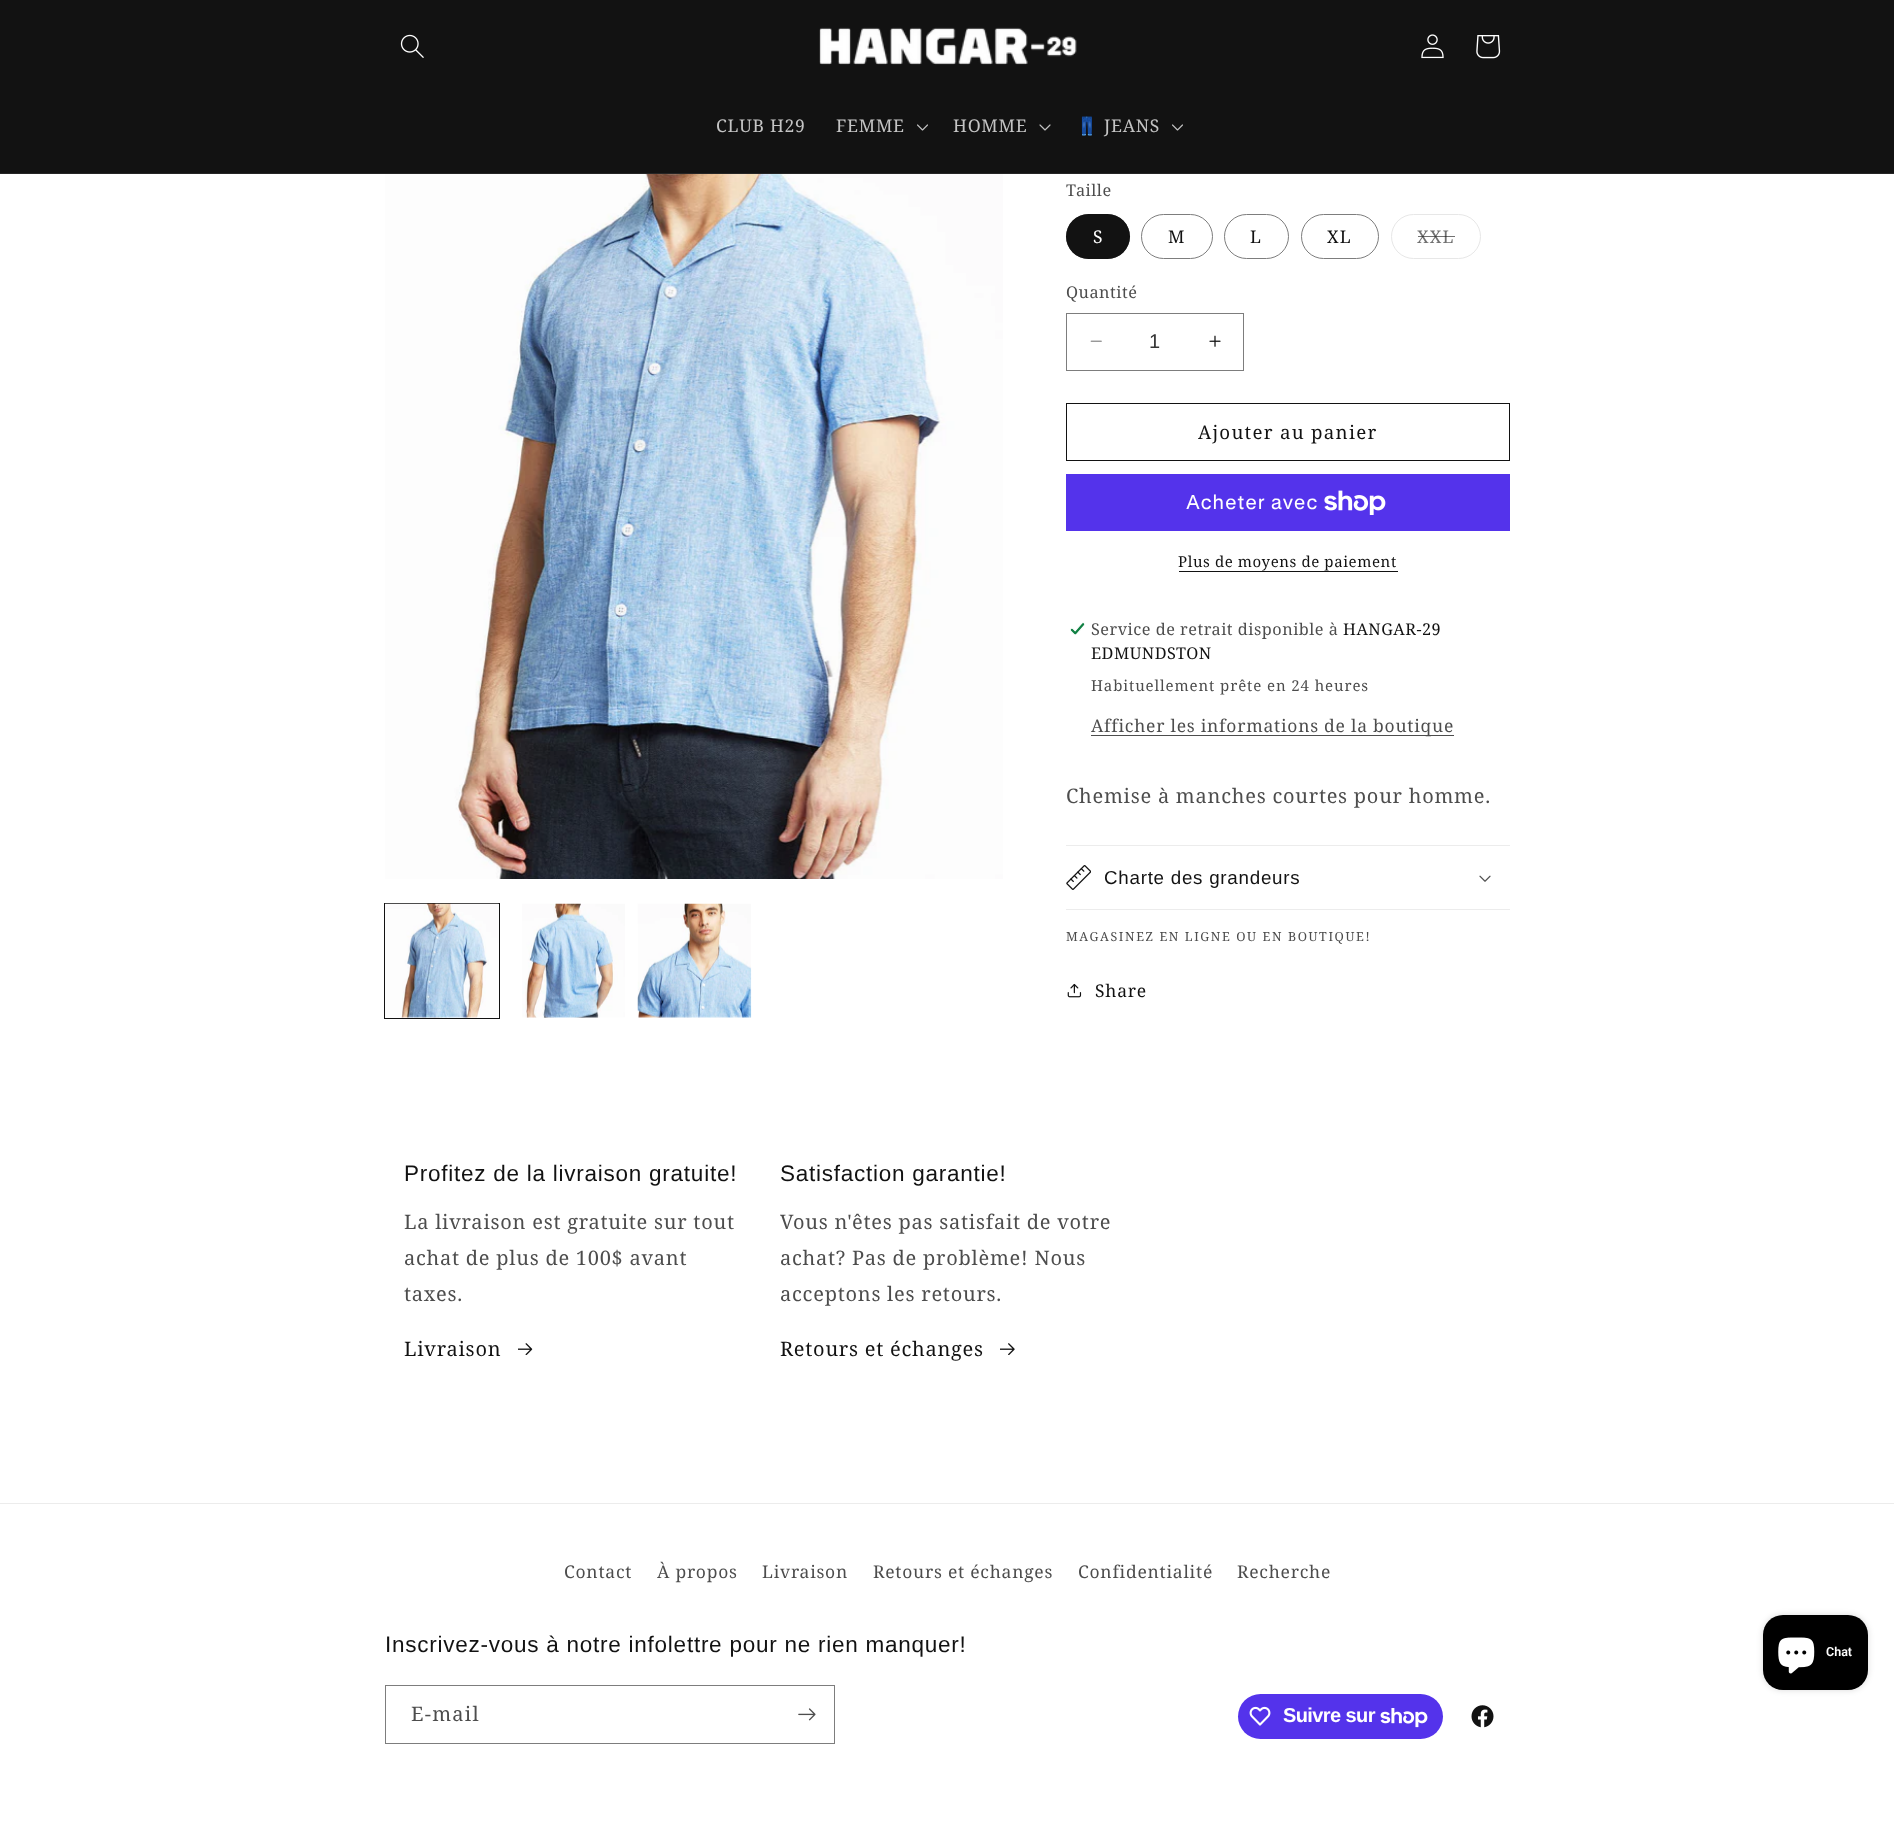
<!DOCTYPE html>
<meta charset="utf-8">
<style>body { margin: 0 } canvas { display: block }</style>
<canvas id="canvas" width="1894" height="1846"></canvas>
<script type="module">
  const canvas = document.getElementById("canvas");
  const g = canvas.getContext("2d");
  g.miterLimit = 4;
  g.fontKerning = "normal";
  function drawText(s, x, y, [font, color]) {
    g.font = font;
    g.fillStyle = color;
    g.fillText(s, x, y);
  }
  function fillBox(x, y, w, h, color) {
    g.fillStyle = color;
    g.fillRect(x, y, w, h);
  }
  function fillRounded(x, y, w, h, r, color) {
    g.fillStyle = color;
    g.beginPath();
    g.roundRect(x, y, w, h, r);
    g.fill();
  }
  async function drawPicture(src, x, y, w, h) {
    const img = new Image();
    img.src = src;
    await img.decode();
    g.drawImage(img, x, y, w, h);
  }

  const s1 = ["17.5px Noto Serif", "#C4C4C4"];
  const s2 = ["17.5px Noto Color Emoji", "#C4C4C4"];
  const s3 = ["16.25px Noto Serif", "#4D4D4D"];
  const s4 = ["17.5px Noto Serif", "#FFFFFF"];
  const s5 = ["17.5px Noto Serif", "#121212"];
  const s6 = ["17.5px Noto Serif", "#717171"];
  const s7 = ["20px Liberation Sans", "#363636"];
  const s8 = ["18.75px Noto Serif", "#121212"];
  const s9 = ["20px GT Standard", "#FFFFFF"];
  const s10 = ["15px Noto Serif", "#121212"];
  const s11 = ["16.25px Noto Serif", "#121212"];
  const s12 = ["15px Noto Serif", "#4D4D4D"];
  const s13 = ["17.5px Noto Serif", "#4D4D4D"];
  const s14 = ["20px Noto Serif", "#4D4D4D"];
  const s15 = ["18.75px Liberation Sans", "#121212"];
  const s16 = ["12.5px Noto Serif", "#4D4D4D"];
  const s17 = ["22.5px Liberation Sans", "#121212"];
  const s18 = ["20px Noto Serif", "#121212"];
  const s19 = ["bold 20px Liberation Sans", "#FFFFFF"];
  const s20 = ["600 12.5px Roboto", "#FFFFFF"];

  fillBox(0, 0, 1894, 1846, "#FFFFFF");
  fillBox(0, 0, 1894, 173, "#121212");
  fillBox(0, 173, 1894, 1, "#252525");
  await drawPicture("pic1.png", 400, 34, 24, 24);
  await drawPicture("pic2.png", 819, 27, 258, 38);
  await drawPicture("pic3.png", 1421, 34, 23, 25);
  await drawPicture("pic4.png", 1476, 35, 25, 24);
  g.letterSpacing = "0.75px";
  drawText("CLUB H29", 716, 132, s1);
  drawText("FEMME", 836, 132, s1);
  await drawPicture("pic5.png", 917, 124, 11, 7);
  drawText("HOMME", 953, 132, s1);
  await drawPicture("pic6.png", 1039, 124, 12, 7);
  drawText("👖", 1076, 132, s2);
  drawText("JEANS", 1104, 132, s1);
  await drawPicture("pic5.png", 1172, 124, 11, 7);
  await drawPicture("pic7.png", 385, 174, 618, 705);
  g.strokeStyle = "#121212";
  g.strokeRect(384.5, 903.5, 115, 115);
  await drawPicture("pic8.png", 385, 903, 114, 115);
  await drawPicture("pic9.png", 522, 903, 103, 115);
  await drawPicture("pic10.png", 637, 903, 115, 115);
  g.letterSpacing = "0.5px";
  drawText("Taille", 1066, 196, s3);
  fillRounded(1066, 214, 64, 45, 22.5, "#121212");
  g.beginPath();
  g.roundRect(1066.5, 214.5, 63, 44, 22);
  g.strokeStyle = "rgba(18, 18, 18, 0.55)";
  g.stroke();
  g.letterSpacing = "1.25px";
  drawText("S", 1093, 243, s4);
  g.beginPath();
  g.roundRect(1141.5, 214.5, 71, 44, 22);
  g.strokeStyle = "#7D7D7D";
  g.stroke();
  drawText("M", 1168, 243, s5);
  g.beginPath();
  g.roundRect(1224.5, 214.5, 64, 44, 22);
  g.stroke();
  drawText("L", 1250, 243, s5);
  g.beginPath();
  g.roundRect(1301.5, 214.5, 77, 44, 22);
  g.stroke();
  drawText("XL", 1327, 243, s5);
  g.beginPath();
  g.roundRect(1391.5, 214.5, 89, 44, 22);
  g.strokeStyle = "#E7E7E7";
  g.stroke();
  drawText("XXL", 1417, 243, s6);
  fillBox(1418, 236, 37, 1, "rgba(18, 18, 18, 0.6)");
  g.letterSpacing = "0.5px";
  drawText("Quantité", 1066, 298, s3);
  await drawPicture("pic11.png", 1090, 340, 12, 2);
  await drawPicture("pic12.png", 1209, 335, 12, 12);
  g.strokeStyle = "#7D7D7D";
  g.strokeRect(1066.5, 313.5, 177, 57);
  g.letterSpacing = "0px";
  drawText("1", 1149, 348, s7);
  g.strokeStyle = "#121212";
  g.strokeRect(1066.5, 403.5, 443, 57);
  g.letterSpacing = "1.25px";
  drawText("Ajouter au panier", 1198, 439, s8);
  fillBox(1066, 474, 444, 57, "#5433EB");
  g.letterSpacing = "0.75px";
  drawText("Acheter avec", 1186, 509, s9);
  await drawPicture("pic13.png", 1324, 490, 62, 25);
  g.letterSpacing = "0.6px";
  drawText("Plus de moyens de paiement", 1178, 567, s10);
  fillBox(1179, 571, 219, 1, "#121212");
  await drawPicture("pic14.png", 1070, 622, 15, 13);
  g.letterSpacing = "0.5px";
  drawText("Service de retrait disponible à", 1091, 635, s3);
  drawText("HANGAR-29", 1343, 635, s11);
  drawText("EDMUNDSTON", 1091, 659, s11);
  g.letterSpacing = "0.9px";
  drawText("Habituellement prête en 24 heures", 1091, 691, s12);
  fillBox(1091, 735, 363, 1, "#4D4D4D");
  g.letterSpacing = "0.75px";
  drawText("Afficher les informations de la boutique", 1091, 732, s13);
  drawText("Chemise à manches courtes pour homme.", 1066, 803, s14);
  fillBox(1066, 845, 444, 1, "#ECECEC");
  fillBox(1066, 909, 444, 1, "#ECECEC");
  await drawPicture("pic15.png", 1066, 865, 25, 25);
  drawText("Charte des grandeurs", 1104, 884, s15);
  await drawPicture("pic16.png", 1479, 875, 12, 7);
  g.letterSpacing = "1.6px";
  drawText("MAGASINEZ EN LIGNE OU EN BOUTIQUE!", 1066, 941, s16);
  await drawPicture("pic17.png", 1067, 983, 15, 15);
  g.letterSpacing = "0.75px";
  drawText("Share", 1095, 997, s5);
  drawText("Profitez de la livraison gratuite!", 404, 1181, s17);
  drawText("La livraison est gratuite sur tout", 404, 1229, s14);
  drawText("achat de plus de 100$ avant", 404, 1265, s14);
  drawText("taxes.", 404, 1301, s14);
  drawText("Livraison", 404, 1356, s18);
  await drawPicture("pic18.png", 518, 1343, 15, 12);
  drawText("Satisfaction garantie!", 780, 1181, s17);
  drawText("Vous n'êtes pas satisfait de votre", 780, 1229, s14);
  drawText("achat? Pas de problème! Nous", 780, 1265, s14);
  drawText("acceptons les retours.", 780, 1301, s14);
  drawText("Retours et échanges", 780, 1356, s18);
  await drawPicture("pic19.png", 1000, 1343, 15, 12);
  fillBox(0, 1503, 1894, 1, "#ECECEC");
  drawText("Contact", 564, 1578, s13);
  drawText("À propos", 657, 1578, s13);
  drawText("Livraison", 762, 1578, s13);
  drawText("Retours et échanges", 873, 1578, s13);
  drawText("Confidentialité", 1078, 1578, s13);
  drawText("Recherche", 1237, 1578, s13);
  drawText("Inscrivez-vous à notre infolettre pour ne rien manquer!", 385, 1652, s17);
  g.strokeStyle = "#7D7D7D";
  g.strokeRect(385.5, 1685.5, 449, 58);
  g.letterSpacing = "1.25px";
  drawText("E-mail", 411, 1721, s14);
  await drawPicture("pic20.png", 798, 1708, 18, 13);
  fillRounded(1238, 1694, 205, 45, 22.5, "#5433EB");
  await drawPicture("pic21.png", 1249, 1706, 22, 20);
  g.letterSpacing = "-0.6px";
  drawText("Suivre sur", 1283, 1722, s19);
  await drawPicture("pic22.png", 1380, 1708, 48, 20);
  await drawPicture("pic23.png", 1471, 1705, 23, 23);
  g.fillStyle = "rgba(0, 0, 0, 0.15)";
  g.filter = "blur(3px)";
  g.beginPath();
  g.roundRect(1763, 1615, 105, 75, 20);
  g.fill();
  g.filter = "none";
  fillRounded(1763, 1615, 105, 75, 20, "#000000");
  await drawPicture("pic24.png", 1778, 1637, 37, 37);
  g.letterSpacing = "0px";
  drawText("Chat", 1826, 1656, s20);
</script>
